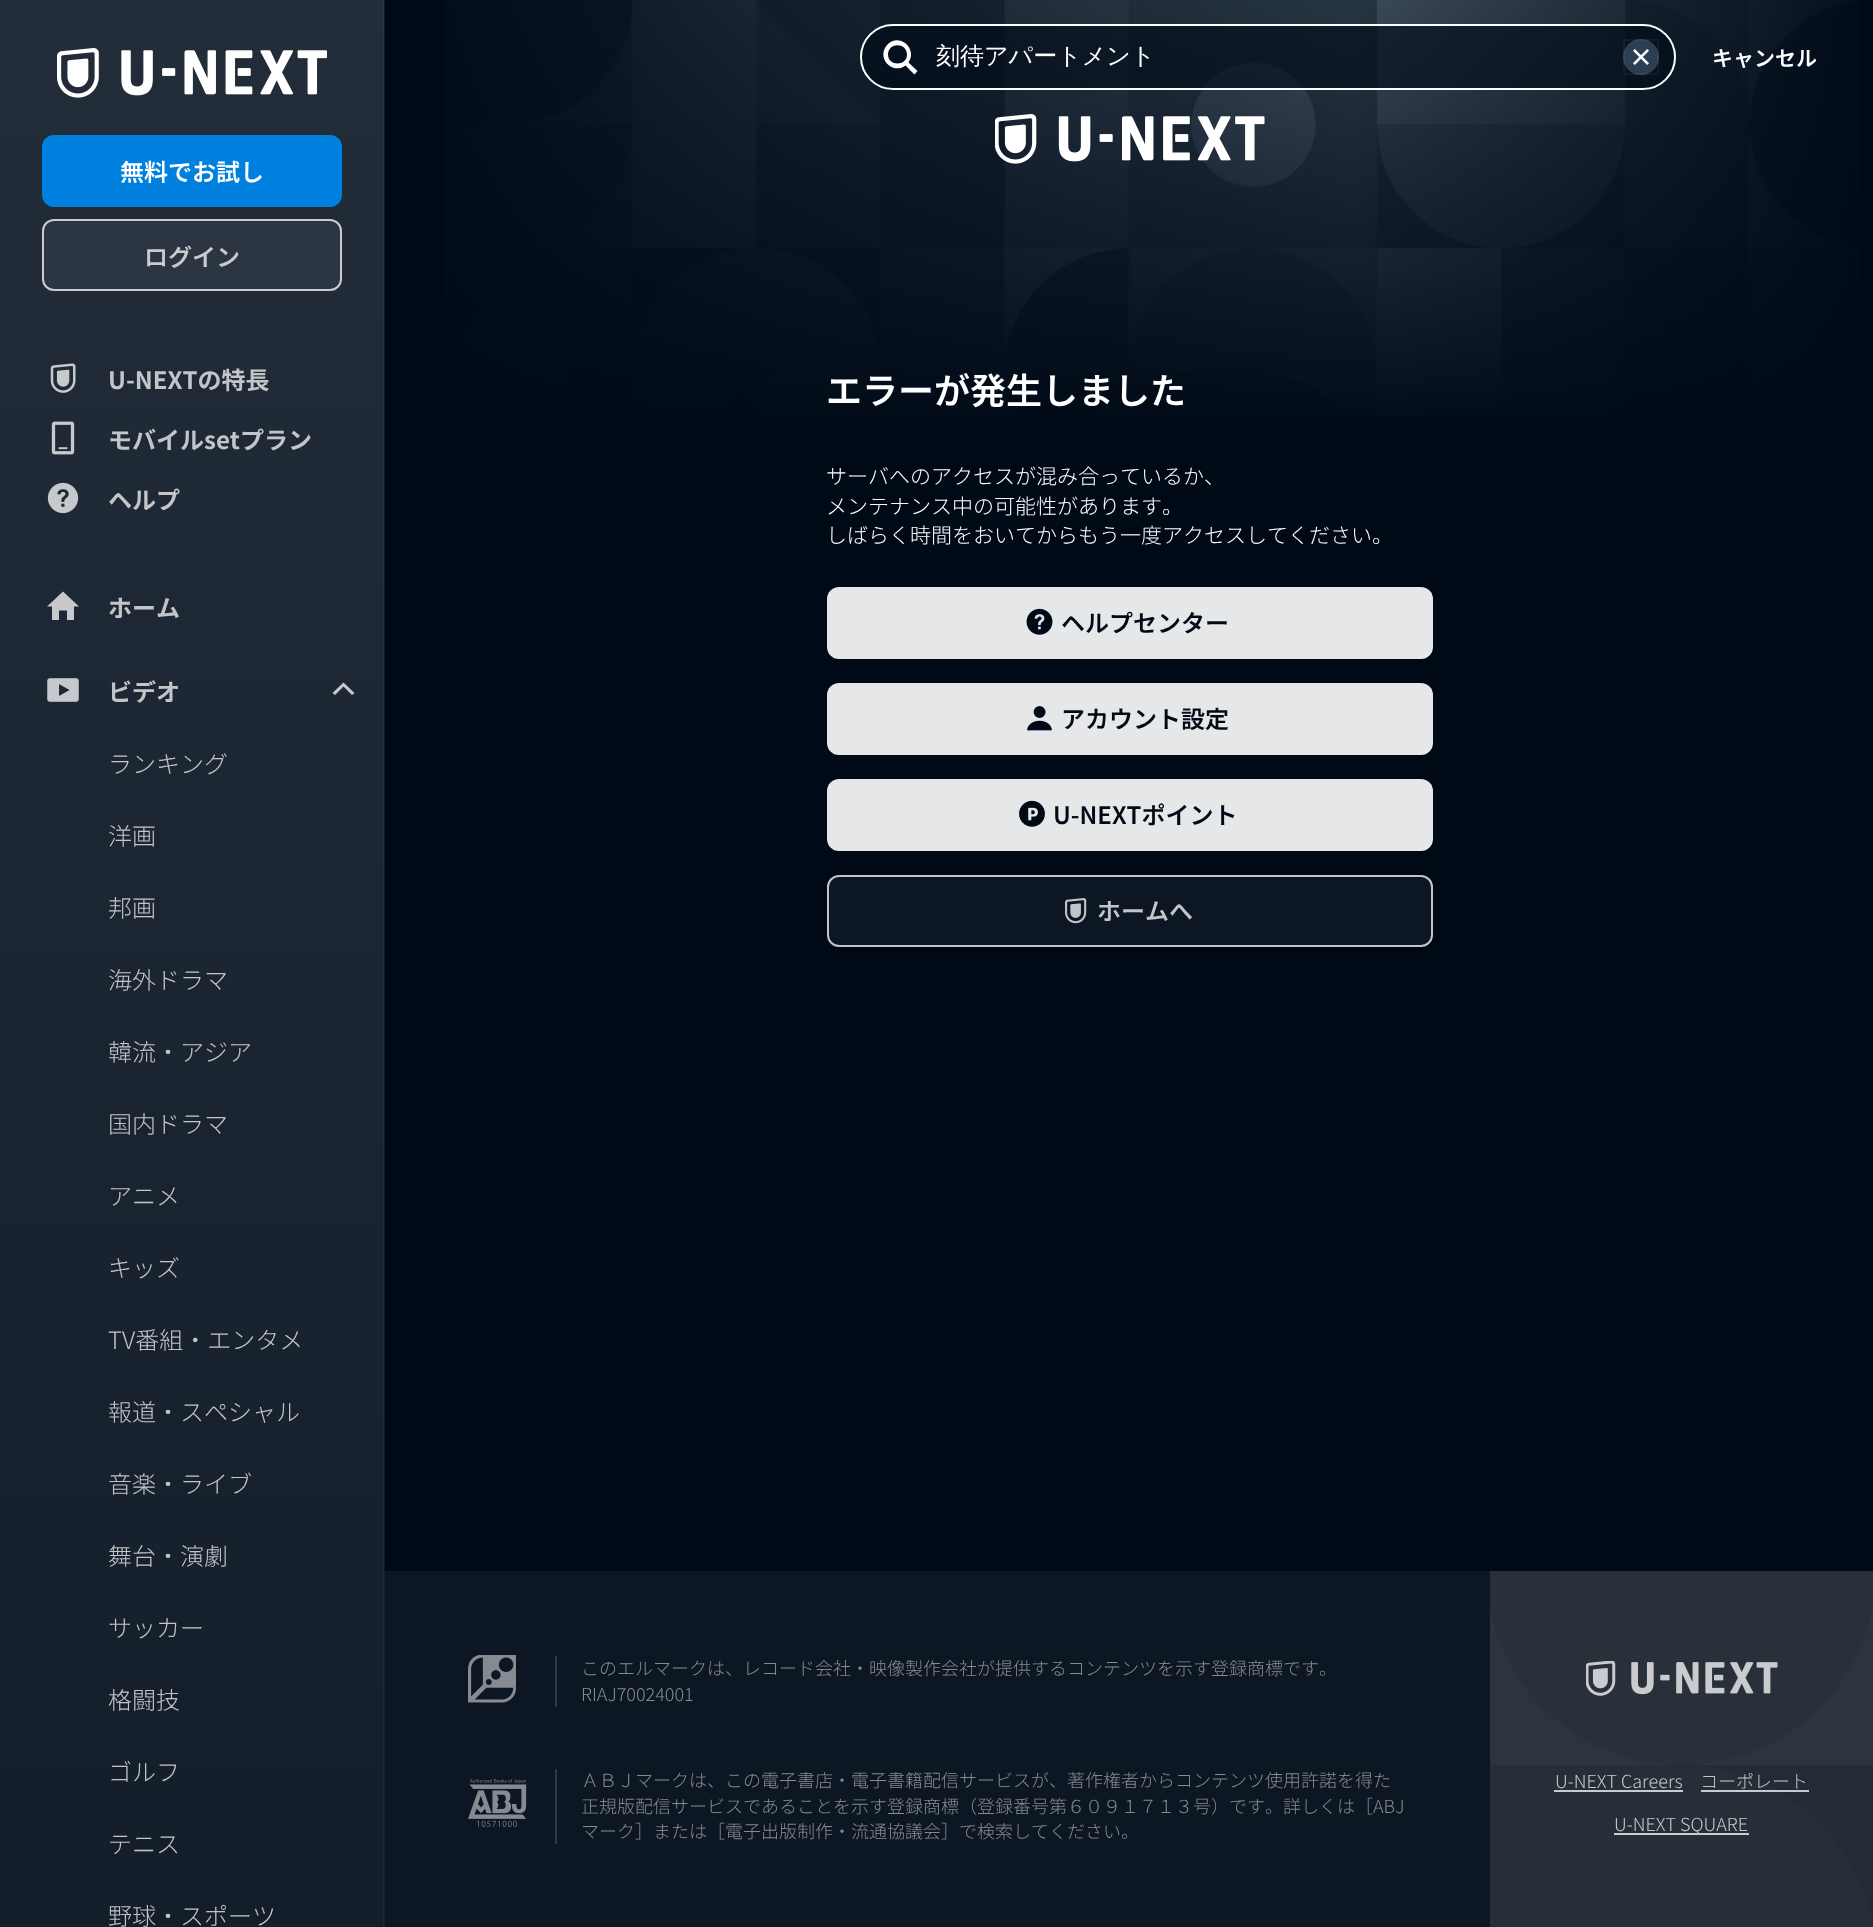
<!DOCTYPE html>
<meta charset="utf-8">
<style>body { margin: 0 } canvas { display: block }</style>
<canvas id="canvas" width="1873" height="1927"></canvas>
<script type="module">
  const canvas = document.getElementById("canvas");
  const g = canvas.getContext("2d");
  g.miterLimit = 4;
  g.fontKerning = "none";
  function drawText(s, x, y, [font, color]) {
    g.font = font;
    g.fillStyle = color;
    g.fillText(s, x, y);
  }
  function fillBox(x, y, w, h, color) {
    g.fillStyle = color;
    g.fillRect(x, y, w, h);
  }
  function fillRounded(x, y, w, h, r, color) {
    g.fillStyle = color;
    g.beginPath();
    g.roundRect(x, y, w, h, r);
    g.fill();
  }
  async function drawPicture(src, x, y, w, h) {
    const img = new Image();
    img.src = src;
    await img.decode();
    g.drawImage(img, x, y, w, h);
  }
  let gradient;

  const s1 = ["500 24px WenQuanYi Zen Hei", "#FFFFFF"];
  const s2 = ["600 21px Noto Sans JP", "#FFFFFF"];
  const s3 = ["600 24px Noto Sans JP", "#FFFFFF"];
  const s4 = ["600 24px Noto Sans JP", "#C9CBCD"];
  const s5 = ["bold 24px Noto Sans JP", "#C3C5C8"];
  const s6 = ["300 24px Noto Sans JP", "#C3C5C8"];
  const s7 = ["600 36px Noto Sans JP", "#FFFFFF"];
  const s8 = ["300 21px Noto Sans JP", "#FFFFFF"];
  const s9 = ["600 24px Noto Sans JP", "#000A17"];
  const s10 = ["600 24px Noto Sans JP", "#C3C5C8"];
  const s11 = ["300 18px Noto Sans JP", "#868B91"];
  const s12 = ["300 18px Noto Sans JP", "#C9CBCD"];
  const s13 = ["300 18px Noto Sans JP", "#C3C5C8"];

  fillBox(0, 0, 1873, 1927, "#000A17");
  fillBox(384, 0, 1, 1571, "#0D1623");
  await drawPicture("pic7.png", 445, 0, 1415, 417);
  g.fillStyle = "rgba(0, 10, 23, 0.6)";
  g.beginPath();
  g.roundRect(861, 25, 814, 64, 32);
  g.fill();
  g.strokeStyle = "#FFFFFF";
  g.lineWidth = 2;
  g.stroke();
  g.fillStyle = "#FFFFFF";
  g.beginPath();
  g.moveTo(907, 54.5);
  g.bezierCurveTo(907, 66.5, 888, 66.5, 888, 54.5);
  g.bezierCurveTo(888, 42, 907, 42, 907, 54.5);
  g.closePath();
  g.moveTo(905.5, 65.5);
  g.bezierCurveTo(892, 75.5, 875.5, 57, 887.5, 44.5);
  g.bezierCurveTo(899.5, 32.5, 918, 49, 908.5, 62.5);
  g.lineTo(917.5, 71);
  g.lineTo(914.5, 74.5);
  g.closePath();
  g.fill("evenodd");
  drawText("刻待アパートメント", 936, 64, s1);
  g.fillStyle = "rgba(64, 83, 104, 0.7)";
  g.beginPath();
  g.arc(1641, 57, 18, 0, Math.PI * 2);
  g.fill();
  g.strokeStyle = "rgba(255, 255, 255, 0.05)";
  g.strokeRect(1624, 40, 34, 34);
  await drawPicture("pic1.png", 1633, 49, 16, 16);
  drawText("キャンセル", 1712, 66, s2);
  gradient = g.createLinearGradient(191, 0, 191, 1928);
  gradient.addColorStop(0, "#232D3A");
  gradient.addColorStop(1, "#141E2B");
  g.fillStyle = gradient;
  g.fillRect(0, 0, 383, 1927);
  gradient = g.createLinearGradient(191, 0, 191, 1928);
  gradient.addColorStop(0, "#2E3844");
  gradient.addColorStop(1, "#202936");
  g.fillStyle = gradient;
  g.fillRect(383, 0, 1, 1927);
  await drawPicture("pic2.png", 57, 48, 270, 50);
  fillRounded(42, 135, 300, 72, 12, "#0080DE");
  drawText("無料でお試し", 120, 181, s3);
  fillRounded(42, 219, 300, 72, 12, "#2C3642");
  g.beginPath();
  g.roundRect(43, 220, 298, 70, 11);
  g.strokeStyle = "rgba(255, 255, 255, 0.75)";
  g.stroke();
  drawText("ログイン", 144, 266, s4);
  await drawPicture("pic3.png", 50, 363, 26, 30);
  drawText("U-NEXTの特長", 108, 389, s5);
  await drawPicture("pic4.png", 51, 421, 24, 34);
  drawText("モバイルsetプラン", 108, 449, s5);
  await drawPicture("pic5.png", 47, 482, 32, 32);
  drawText("ヘルプ", 108, 509, s5);
  g.fillStyle = "#C7C9CD";
  g.beginPath();
  g.moveTo(79, 606.5);
  g.lineTo(63, 591.5);
  g.lineTo(47, 606.5);
  g.lineTo(52, 606.5);
  g.lineTo(52, 620);
  g.lineTo(59, 620);
  g.lineTo(59, 610.5);
  g.lineTo(67, 610.5);
  g.lineTo(67, 620);
  g.lineTo(74, 620);
  g.lineTo(74, 606.5);
  g.closePath();
  g.fill("evenodd");
  drawText("ホーム", 108, 617, s5);
  await drawPicture("pic6.png", 47, 678, 32, 24);
  drawText("ビデオ", 108, 701, s5);
  g.fillStyle = "#C7C9CD";
  g.beginPath();
  g.moveTo(343.5, 686.5);
  g.lineTo(335, 695);
  g.lineTo(332.5, 693);
  g.lineTo(343.5, 682.5);
  g.lineTo(354.5, 693);
  g.lineTo(352, 695);
  g.closePath();
  g.fill("evenodd");
  drawText("ランキング", 108, 773, s6);
  drawText("洋画", 108, 845, s6);
  drawText("邦画", 108, 917, s6);
  drawText("海外ドラマ", 108, 989, s6);
  drawText("韓流・アジア", 108, 1061, s6);
  drawText("国内ドラマ", 108, 1133, s6);
  drawText("アニメ", 108, 1205, s6);
  drawText("キッズ", 108, 1277, s6);
  drawText("TV番組・エンタメ", 108, 1349, s6);
  drawText("報道・スペシャル", 108, 1421, s6);
  drawText("音楽・ライブ", 108, 1493, s6);
  drawText("舞台・演劇", 108, 1565, s6);
  drawText("サッカー", 108, 1637, s6);
  drawText("格闘技", 108, 1709, s6);
  drawText("ゴルフ", 108, 1781, s6);
  drawText("テニス", 108, 1853, s6);
  drawText("野球・スポーツ", 108, 1925, s6);
  await drawPicture("pic8.png", 995, 114, 270, 50);
  drawText("エラーが発生しました", 826, 404, s7);
  drawText("サーバへのアクセスが混み合っているか、", 826, 484, s8);
  drawText("メンテナンス中の可能性があります。", 826, 514, s8);
  drawText("しばらく時間をおいてからもう一度アクセスしてください。", 826, 543, s8);
  fillRounded(827, 587, 606, 72, 12, "#E6E7E8");
  await drawPicture("pic9.png", 1026, 608, 27, 27);
  drawText("ヘルプセンター", 1061, 632, s9);
  fillRounded(827, 683, 606, 72, 12, "#E6E7E8");
  await drawPicture("pic10.png", 1027, 706, 25, 25);
  drawText("アカウント設定", 1061, 728, s9);
  fillRounded(827, 779, 606, 72, 12, "#E6E7E8");
  await drawPicture("pic11.png", 1019, 800, 26, 27);
  drawText("U-NEXTポイント", 1053, 824, s9);
  fillRounded(827, 875, 606, 72, 12, "#0D1623");
  g.beginPath();
  g.roundRect(828, 876, 604, 70, 11);
  g.stroke();
  await drawPicture("pic12.png", 1065, 898, 22, 26);
  drawText("ホームへ", 1097, 920, s10);
  fillBox(385, 1571, 1105, 356, "#0D1623");
  fillBox(384, 1571, 1, 356, "#19222E");
  await drawPicture("pic13.png", 468, 1655, 48, 48);
  fillBox(555, 1656, 2, 51, "#313944");
  drawText("このエルマークは、レコード会社・映像製作会社が提供するコンテンツを示す登録商標です。", 581, 1675, s11);
  drawText("RIAJ70024001", 581, 1701, s11);
  await drawPicture("pic14.png", 468, 1779, 59, 48);
  fillBox(555, 1769, 2, 75, "#313944");
  drawText("ＡＢＪマークは、この電子書店・電子書籍配信サービスが、著作権者からコンテンツ使用許諾を得た", 581, 1787, s11);
  drawText("正規版配信サービスであることを示す登録商標（登録番号第６０９１７１３号）です。詳しくは［ABJ", 581, 1813, s11);
  drawText("マーク］または［電子出版制作・流通協議会］で検索してください。", 581, 1838, s11);
  fillBox(1682, 1765, 191, 161, "#232B36");
  g.save();
  g.beginPath();
  g.rect(1490, 1571, 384, 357);
  g.clip();
  g.fillStyle = "#262E38";
  g.beginPath();
  g.moveTo(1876, 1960);
  g.bezierCurveTo(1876, 1852, 1789, 1765, 1681, 1765);
  g.lineTo(1486, 1765);
  g.lineTo(1486, 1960);
  g.closePath();
  g.fill("evenodd");
  g.restore();
  fillBox(1490, 1605, 383, 160, "#2B343F");
  g.save();
  g.beginPath();
  g.rect(1490, 1571, 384, 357);
  g.clip();
  g.fillStyle = "#28303A";
  g.beginPath();
  g.moveTo(1681, 1765);
  g.bezierCurveTo(1574, 1765, 1486, 1678, 1486, 1571);
  g.lineTo(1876, 1571);
  g.bezierCurveTo(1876, 1678, 1789, 1765, 1681, 1765);
  g.closePath();
  g.fill("evenodd");
  g.restore();
  await drawPicture("pic15.png", 1586, 1661, 192, 35);
  drawText("U-NEXT Careers", 1555, 1788, s12);
  fillBox(1554, 1790, 129, 2, "#C9CBCD");
  drawText("コーポレート", 1700, 1788, s13);
  fillBox(1701, 1790, 108, 2, "rgba(255, 255, 255, 0.75)");
  fillBox(1614, 1833, 135, 2, "#C9CBCD");
  drawText("U-NEXT SQUARE", 1614, 1831, s12);
</script>
